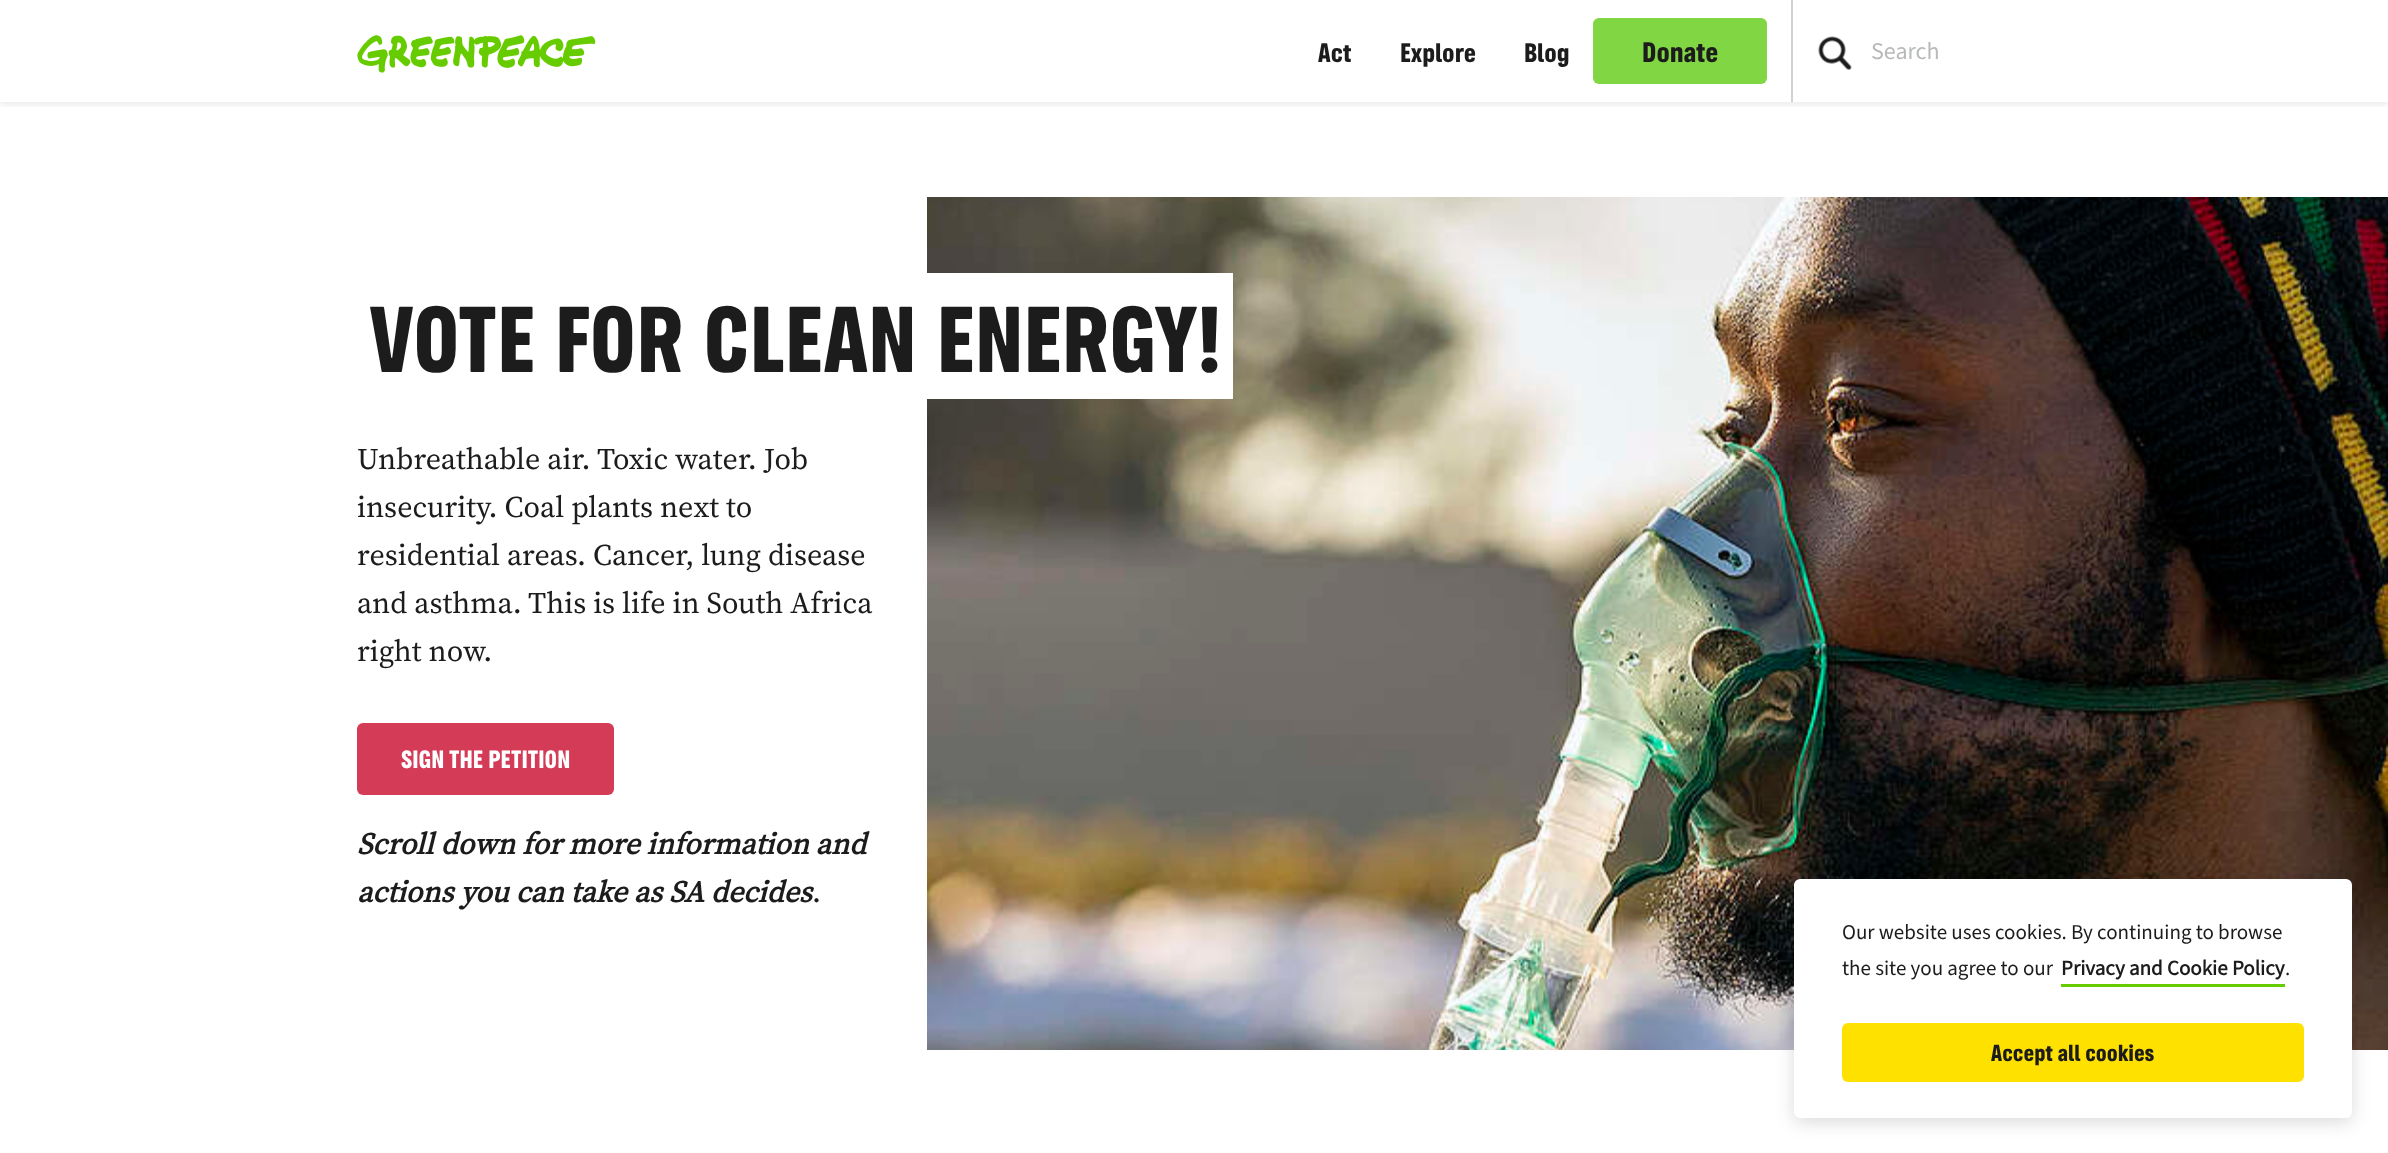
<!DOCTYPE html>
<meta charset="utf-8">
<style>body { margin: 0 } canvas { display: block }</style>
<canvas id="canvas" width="2388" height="1153"></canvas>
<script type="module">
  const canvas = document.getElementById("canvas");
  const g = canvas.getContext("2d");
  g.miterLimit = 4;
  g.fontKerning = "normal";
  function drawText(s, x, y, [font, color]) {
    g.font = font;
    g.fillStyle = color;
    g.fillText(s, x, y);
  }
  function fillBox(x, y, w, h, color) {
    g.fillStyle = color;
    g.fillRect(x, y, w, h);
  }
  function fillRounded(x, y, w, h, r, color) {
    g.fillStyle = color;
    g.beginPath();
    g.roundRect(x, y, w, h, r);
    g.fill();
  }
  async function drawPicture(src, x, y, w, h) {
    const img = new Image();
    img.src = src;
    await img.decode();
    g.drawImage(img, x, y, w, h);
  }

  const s1 = ["bold 24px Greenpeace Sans", "#1C1C1C"];
  const s2 = ["bold 25.5px Greenpeace Sans", "#1C1C1C"];
  const s3 = ["24px 'Source Sans 3'", "#B7B9BB"];
  const s4 = ["bold 84px Greenpeace Sans", "#1C1C1C"];
  const s5 = ["30px 'Source Serif 4'", "#1C1C1C"];
  const s6 = ["bold 22.5px Greenpeace Sans", "#FFFFFF"];
  const s7 = ["italic bold 30px 'Source Serif 4'", "#1C1C1C"];
  const s8 = ["21px 'Source Sans 3'", "#1C1C1C"];
  const s9 = ["bold 21px 'Source Sans 3'", "#1C1C1C"];
  const s10 = ["bold 21px Greenpeace Sans", "#1C1C1C"];

  fillBox(0, 0, 2388, 1153, "#FFFFFF");
  g.save();
  g.beginPath();
  g.rect(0, 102, 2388, 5);
  g.clip();
  g.fillStyle = "rgba(0, 0, 0, 0.08)";
  g.filter = "blur(3px)";
  g.beginPath();
  g.rect(0, 3, 2388, 102);
  g.fill();
  g.filter = "none";
  g.restore();
  await drawPicture("pic1.png", 357, 35, 239, 38);
  drawText("Act", 1318, 62, s1);
  drawText("Explore", 1400, 62, s1);
  drawText("Blog", 1524, 62, s1);
  fillRounded(1593, 18, 174, 66, 6, "#80D643");
  drawText("Donate", 1642, 62, s2);
  fillBox(1791, 0, 2, 102, "#D1D2D3");
  await drawPicture("pic2.png", 1818, 36, 34, 34);
  drawText("Search", 1871, 59, s3);
  await drawPicture("pic3.png", 927, 197, 1461, 853);
  fillBox(927, 273, 306, 126, "#FFFFFF");
  drawText("VOTE FOR CLEAN ENERGY!", 369, 372, s4);
  drawText("Unbreathable air. Toxic water. Job", 357, 469, s5);
  drawText("insecurity. Coal plants next to", 357, 517, s5);
  drawText("residential areas. Cancer, lung disease", 357, 565, s5);
  drawText("and asthma. This is life in South Africa", 357, 613, s5);
  drawText("right now.", 357, 661, s5);
  fillRounded(357, 723, 257, 72, 6, "#D43B57");
  drawText("SIGN THE PETITION", 401, 768, s6);
  drawText("Scroll down for more information and", 357, 854, s7);
  drawText("actions you can take as SA decides", 357, 902, s7);
  drawText(".", 812, 902, s5);
  g.fillStyle = "rgba(0, 0, 0, 0.15)";
  g.filter = "blur(9px)";
  g.beginPath();
  g.roundRect(1794, 884, 558, 238, 6);
  g.fill();
  g.filter = "none";
  fillRounded(1794, 879, 558, 239, 6, "#FFFFFF");
  drawText("Our website uses cookies. By continuing to browse", 1842, 939, s8);
  drawText("the site you agree to our", 1842, 975, s8);
  drawText("Privacy and Cookie Policy", 2061, 975, s9);
  fillBox(2061, 984, 224, 3, "#66CC00");
  drawText(".", 2285, 975, s8);
  fillRounded(1842, 1023, 462, 59, 6, "#FFE100");
  drawText("Accept all cookies", 1991, 1061, s10);
</script>
